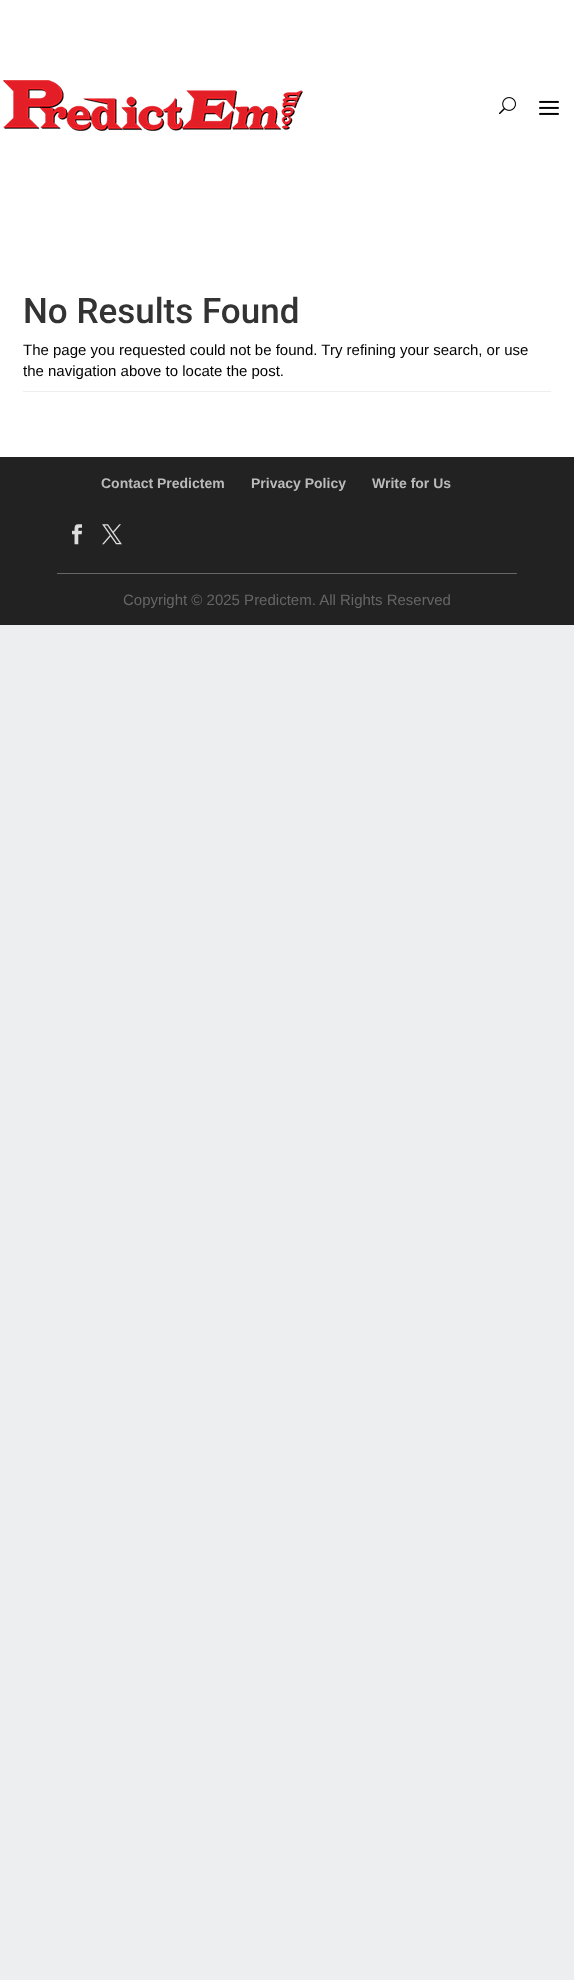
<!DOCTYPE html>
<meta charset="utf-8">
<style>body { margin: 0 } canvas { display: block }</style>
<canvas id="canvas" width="574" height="1980"></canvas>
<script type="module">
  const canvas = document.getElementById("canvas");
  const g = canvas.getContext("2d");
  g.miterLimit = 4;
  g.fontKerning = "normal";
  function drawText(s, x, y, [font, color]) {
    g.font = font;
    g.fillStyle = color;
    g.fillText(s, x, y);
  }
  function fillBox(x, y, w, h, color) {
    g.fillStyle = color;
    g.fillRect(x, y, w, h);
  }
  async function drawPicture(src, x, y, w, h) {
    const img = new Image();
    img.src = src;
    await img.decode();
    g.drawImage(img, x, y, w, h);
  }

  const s1 = ["500 35px Roboto", "#333333"];
  const s2 = ["15px Liberation Sans", "#000000"];
  const s3 = ["bold 14px Liberation Sans", "#BBBBBB"];
  const s4 = ["15px Liberation Sans", "#666666"];

  fillBox(0, 0, 574, 1980, "#EDEEF0");
  fillBox(0, 0, 574, 457, "#FFFFFF");
  await drawPicture("pic1.png", 3, 80, 300, 51);
  await drawPicture("pic2.png", 499, 97, 17, 18);
  await drawPicture("pic3.png", 539, 100, 20, 15);
  fillBox(23, 391, 528, 1, "#EDEEF0");
  drawText("No Results Found", 23, 323, s1);
  drawText("The page you requested could not be found. Try refining your search, or use", 23, 355, s2);
  drawText("the navigation above to locate the post.", 23, 376, s2);
  fillBox(0, 457, 574, 168, "#222222");
  drawText("Contact Predictem", 101, 488, s3);
  drawText("Privacy Policy", 251, 488, s3);
  drawText("Write for Us", 372, 488, s3);
  await drawPicture("pic4.png", 72, 524, 10, 21);
  await drawPicture("pic5.png", 102, 524, 20, 21);
  fillBox(57, 573, 460, 1, "#666666");
  drawText("Copyright © 2025 Predictem. All Rights Reserved", 123, 605, s4);
</script>
